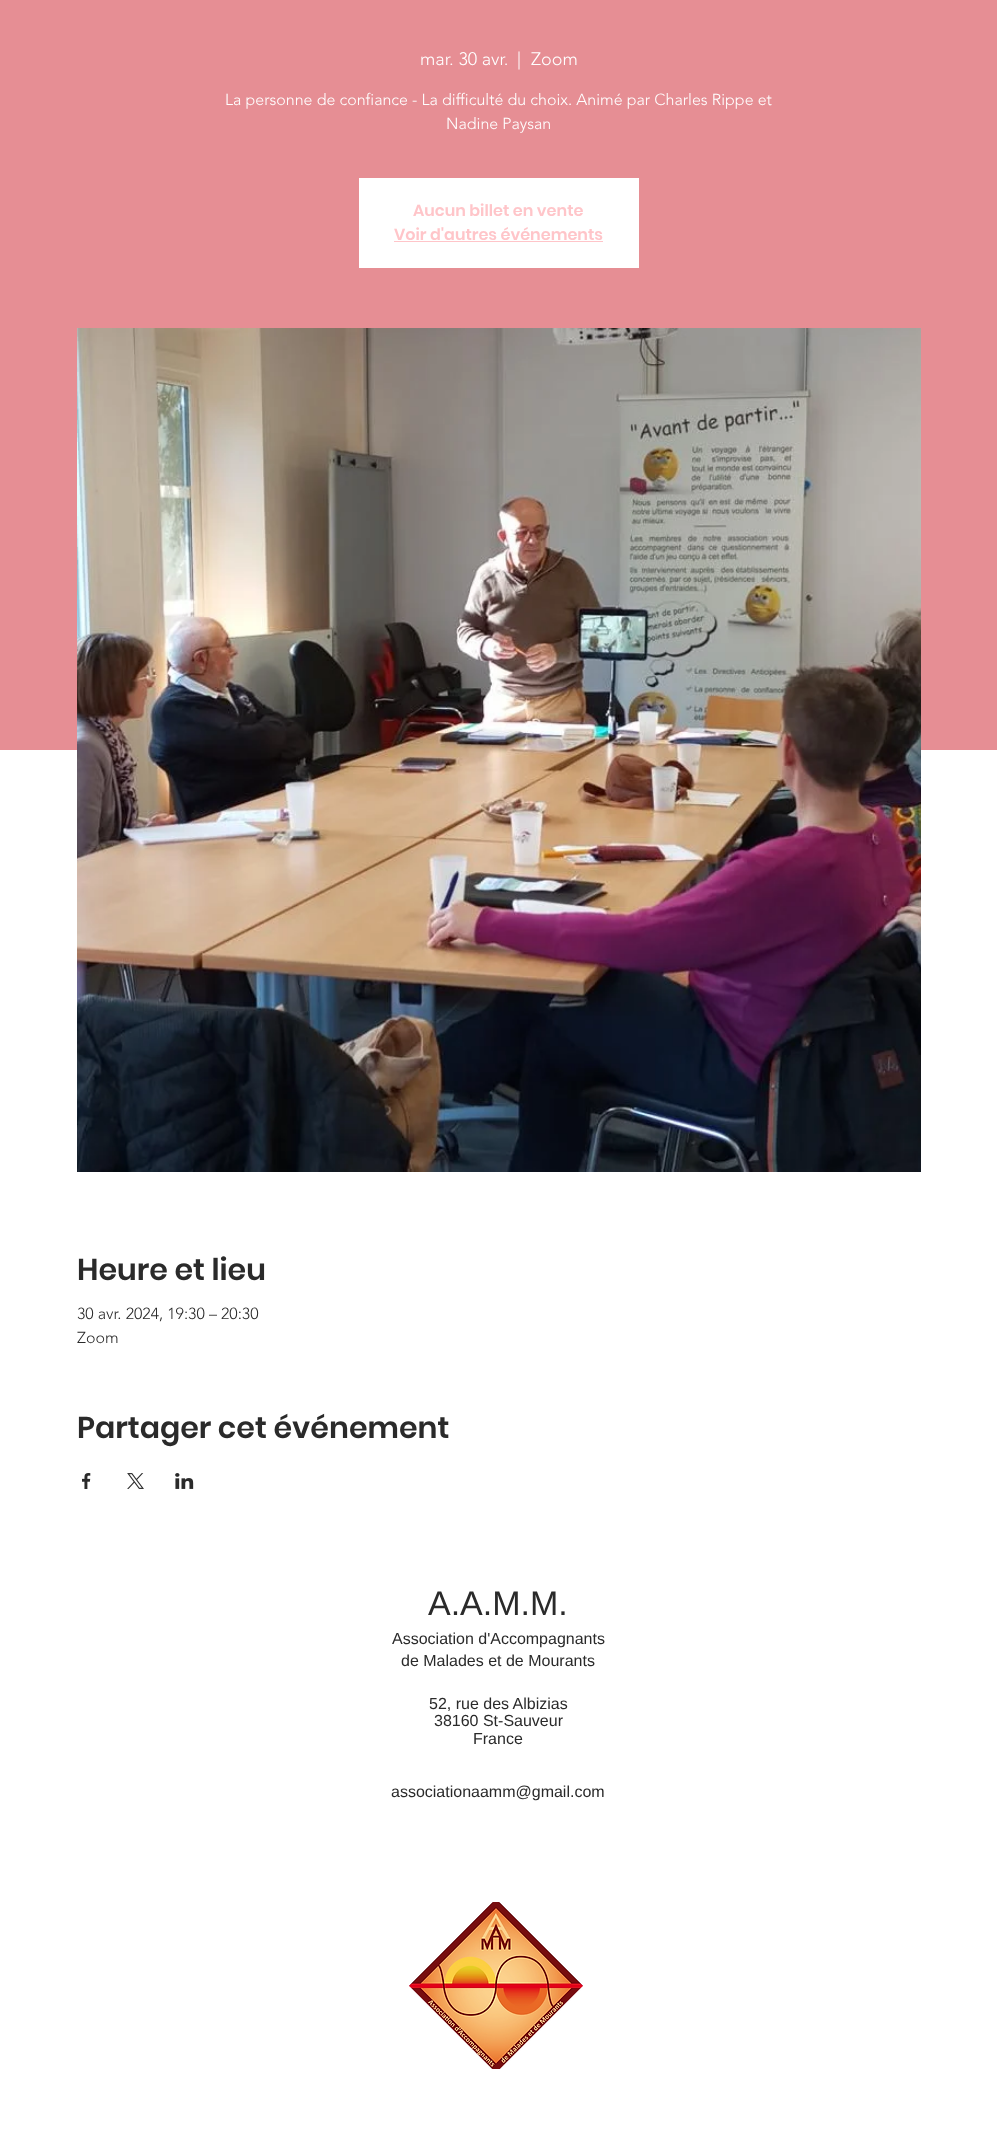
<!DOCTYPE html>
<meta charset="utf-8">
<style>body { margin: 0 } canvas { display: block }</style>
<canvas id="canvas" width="997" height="2131"></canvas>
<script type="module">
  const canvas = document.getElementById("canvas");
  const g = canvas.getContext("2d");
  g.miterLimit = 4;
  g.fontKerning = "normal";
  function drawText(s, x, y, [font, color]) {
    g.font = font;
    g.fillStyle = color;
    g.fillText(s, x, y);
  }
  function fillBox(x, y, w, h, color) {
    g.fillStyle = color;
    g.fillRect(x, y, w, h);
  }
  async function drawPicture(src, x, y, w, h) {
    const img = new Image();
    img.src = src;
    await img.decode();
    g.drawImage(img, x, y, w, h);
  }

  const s1 = ["300 18px 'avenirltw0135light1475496'", "#FFFFFF"];
  const s2 = ["300 16px 'avenirltw0135light1475496'", "#FFFFFF"];
  const s3 = ["600 16px Poppins", "#FFC5C9"];
  const s4 = ["600 30px Poppins", "#2A2A2A"];
  const s5 = ["300 16px 'avenirltw0135light1475496'", "#2A2A2A"];
  const s6 = ["34px Liberation Sans", "#2A2A2A"];
  const s7 = ["16px Liberation Sans", "#2A2A2A"];

  fillBox(0, 0, 997, 2131, "#FFFFFF");
  fillBox(0, 0, 997, 750, "#E68E94");
  drawText("mar. 30 avr.", 420, 65, s1);
  drawText("|", 517, 65, s1);
  drawText("Zoom", 531, 65, s1);
  drawText("La personne de confiance - La difficulté du choix. Animé par Charles Rippe et", 225, 105, s2);
  drawText("Nadine Paysan", 446, 129, s2);
  fillBox(359, 178, 280, 90, "#FFFFFF");
  drawText("Aucun billet en vente", 413, 216, s3);
  drawText("Voir d'autres événements", 394, 240, s3);
  fillBox(394, 241, 209, 1, "#FFC5C9");
  await drawPicture("pic1.png", 77, 328, 844, 844);
  drawText("Heure et lieu", 77, 1280, s4);
  drawText("30 avr. 2024, 19:30 – 20:30", 77, 1319, s5);
  drawText("Zoom", 77, 1343, s5);
  drawText("Partager cet événement", 77, 1438, s4);
  await drawPicture("pic2.png", 82, 1473, 9, 16);
  await drawPicture("pic3.png", 127, 1473, 17, 16);
  await drawPicture("pic4.png", 175, 1473, 19, 16);
  drawText("A.A.M.M.", 428, 1615, s6);
  drawText("Association d'Accompagnants", 392, 1644, s7);
  drawText("de Malades et de Mourants", 401, 1666, s7);
  drawText("52, rue des Albizias", 429, 1709, s7);
  drawText("38160 St-Sauveur", 434, 1726, s7);
  drawText("France", 473, 1744, s7);
  drawText("associationaamm@gmail.com", 391, 1797, s7);
  await drawPicture("pic5.png", 409, 1902, 174, 167);
</script>
